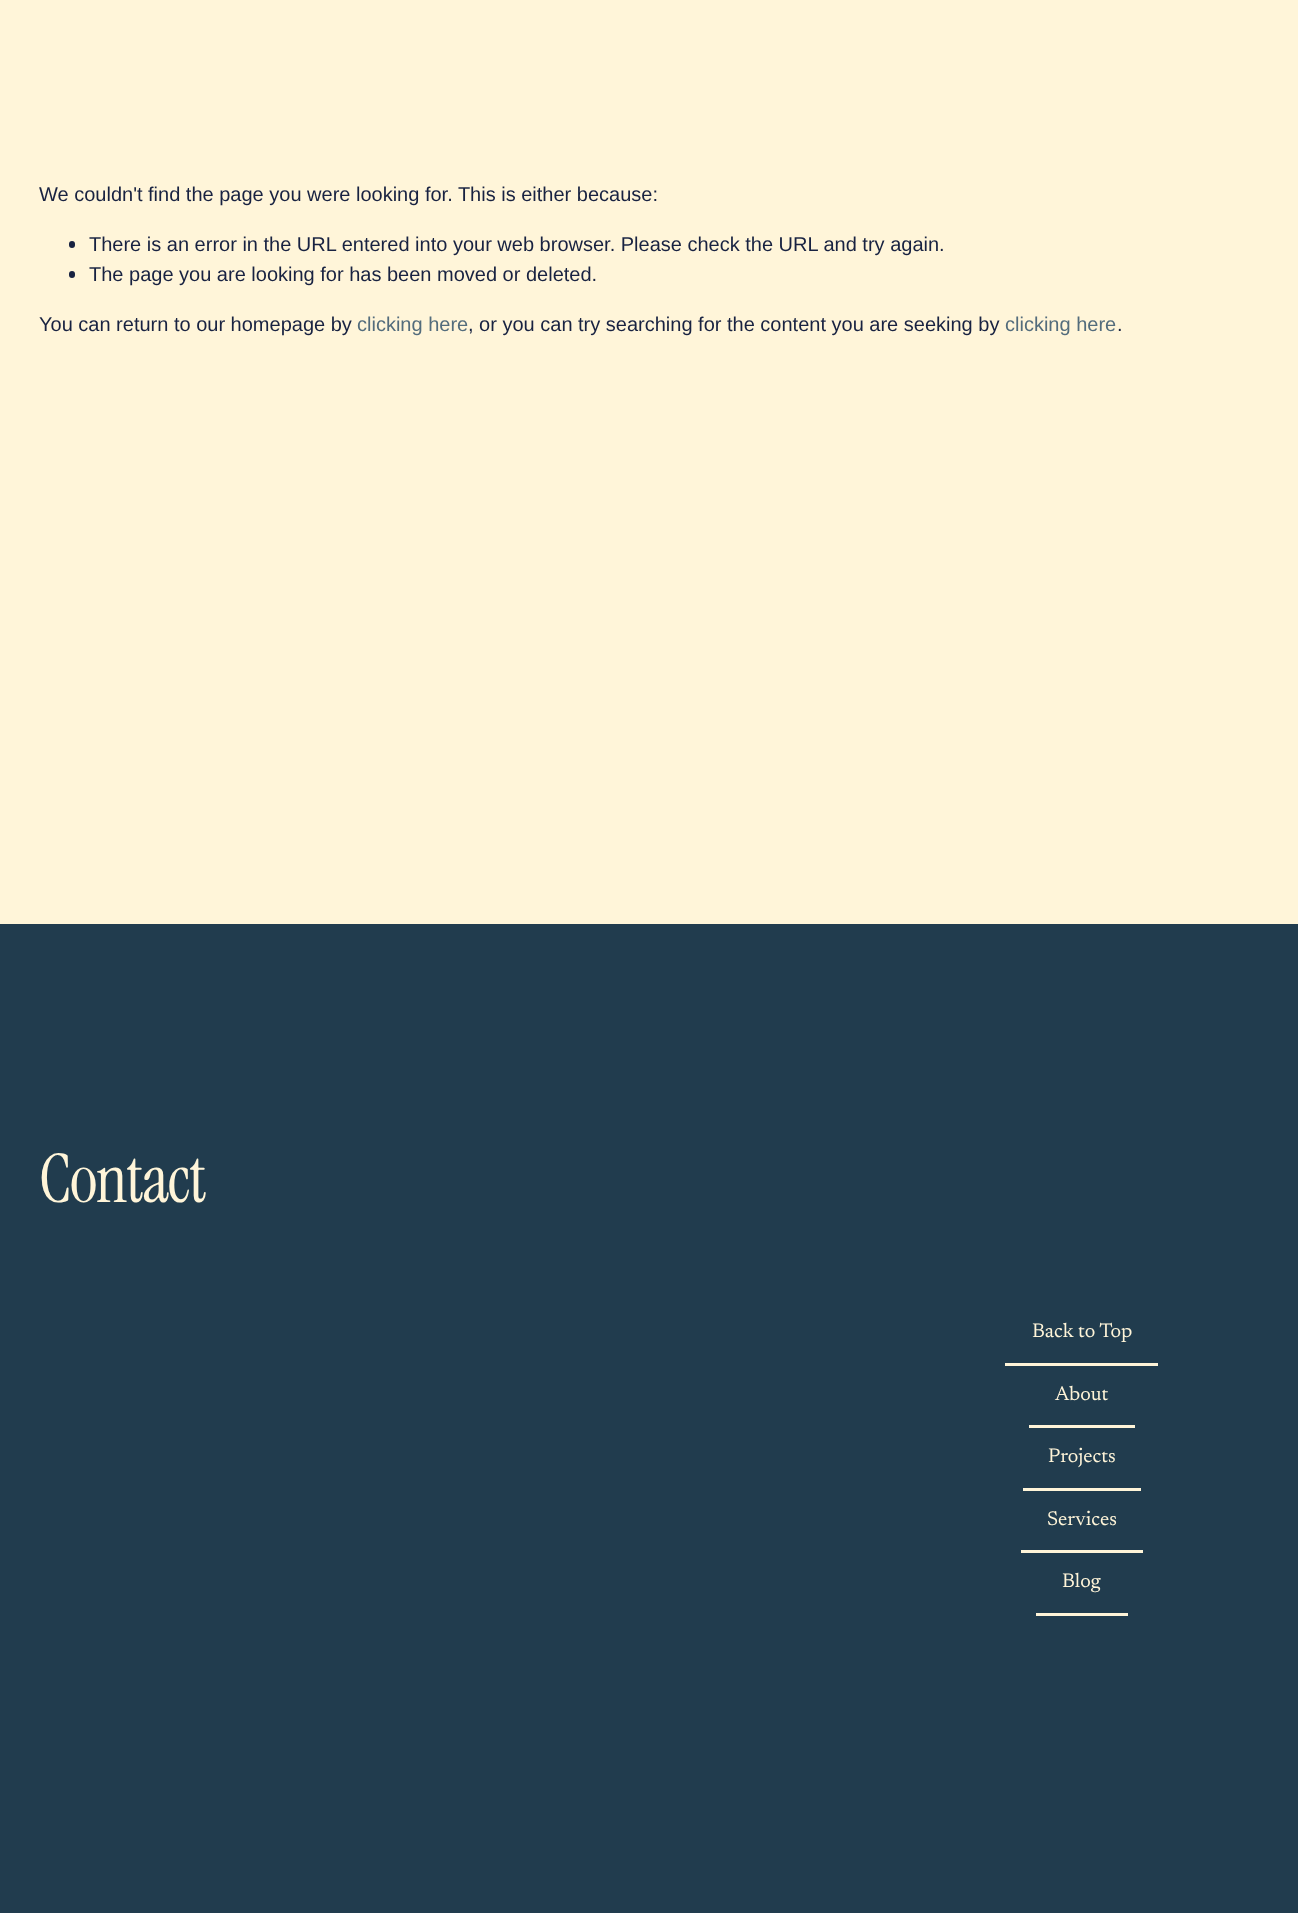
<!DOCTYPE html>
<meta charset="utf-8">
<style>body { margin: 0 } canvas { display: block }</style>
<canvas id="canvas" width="1298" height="1913"></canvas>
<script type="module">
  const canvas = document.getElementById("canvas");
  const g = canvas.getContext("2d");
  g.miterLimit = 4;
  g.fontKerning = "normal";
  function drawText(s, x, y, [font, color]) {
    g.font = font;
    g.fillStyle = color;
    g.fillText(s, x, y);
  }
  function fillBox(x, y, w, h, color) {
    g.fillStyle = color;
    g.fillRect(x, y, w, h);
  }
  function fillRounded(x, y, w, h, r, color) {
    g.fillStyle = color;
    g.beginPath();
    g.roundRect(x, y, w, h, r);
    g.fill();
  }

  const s1 = ["20px Liberation Sans", "#182241"];
  const s2 = ["20px Liberation Sans", "#536C7C"];
  const s3 = ["67px Instrument Serif", "#FFF5D9"];
  const s4 = ["20px Newsreader", "#FFF5D9"];

  fillBox(0, 0, 1298, 1913, "#FFF5D9");
  drawText("We couldn't find the page you were looking for. This is either because:", 39, 201, s1);
  fillRounded(69, 241, 6, 7, 3, "#182241");
  drawText("There is an error in the URL entered into your web browser. Please check the URL and try again.", 89, 251, s1);
  fillRounded(69, 271, 6, 7, 3, "#182241");
  drawText("The page you are looking for has been moved or deleted.", 89, 281, s1);
  drawText("You can return to our homepage by", 39, 331, s1);
  drawText("clicking here", 357, 331, s2);
  drawText(", or you can try searching for the content you are seeking by", 468, 331, s1);
  drawText("clicking here", 1005, 331, s2);
  drawText(".", 1117, 331, s1);
  fillBox(0, 924, 1298, 989, "#213C4E");
  g.letterSpacing = "-1.25px";
  drawText("Contact", 39, 1202, s3);
  fillBox(1005, 1363, 153, 3, "#FFF5D9");
  g.letterSpacing = "0px";
  drawText("Back to Top", 1032, 1337, s4);
  fillBox(1029, 1425, 106, 3, "#FFF5D9");
  drawText("About", 1055, 1400, s4);
  fillBox(1023, 1488, 118, 3, "#FFF5D9");
  drawText("Projects", 1048, 1462, s4);
  fillBox(1021, 1550, 122, 3, "#FFF5D9");
  drawText("Services", 1047, 1525, s4);
  fillBox(1036, 1613, 92, 3, "#FFF5D9");
  drawText("Blog", 1062, 1587, s4);
</script>
